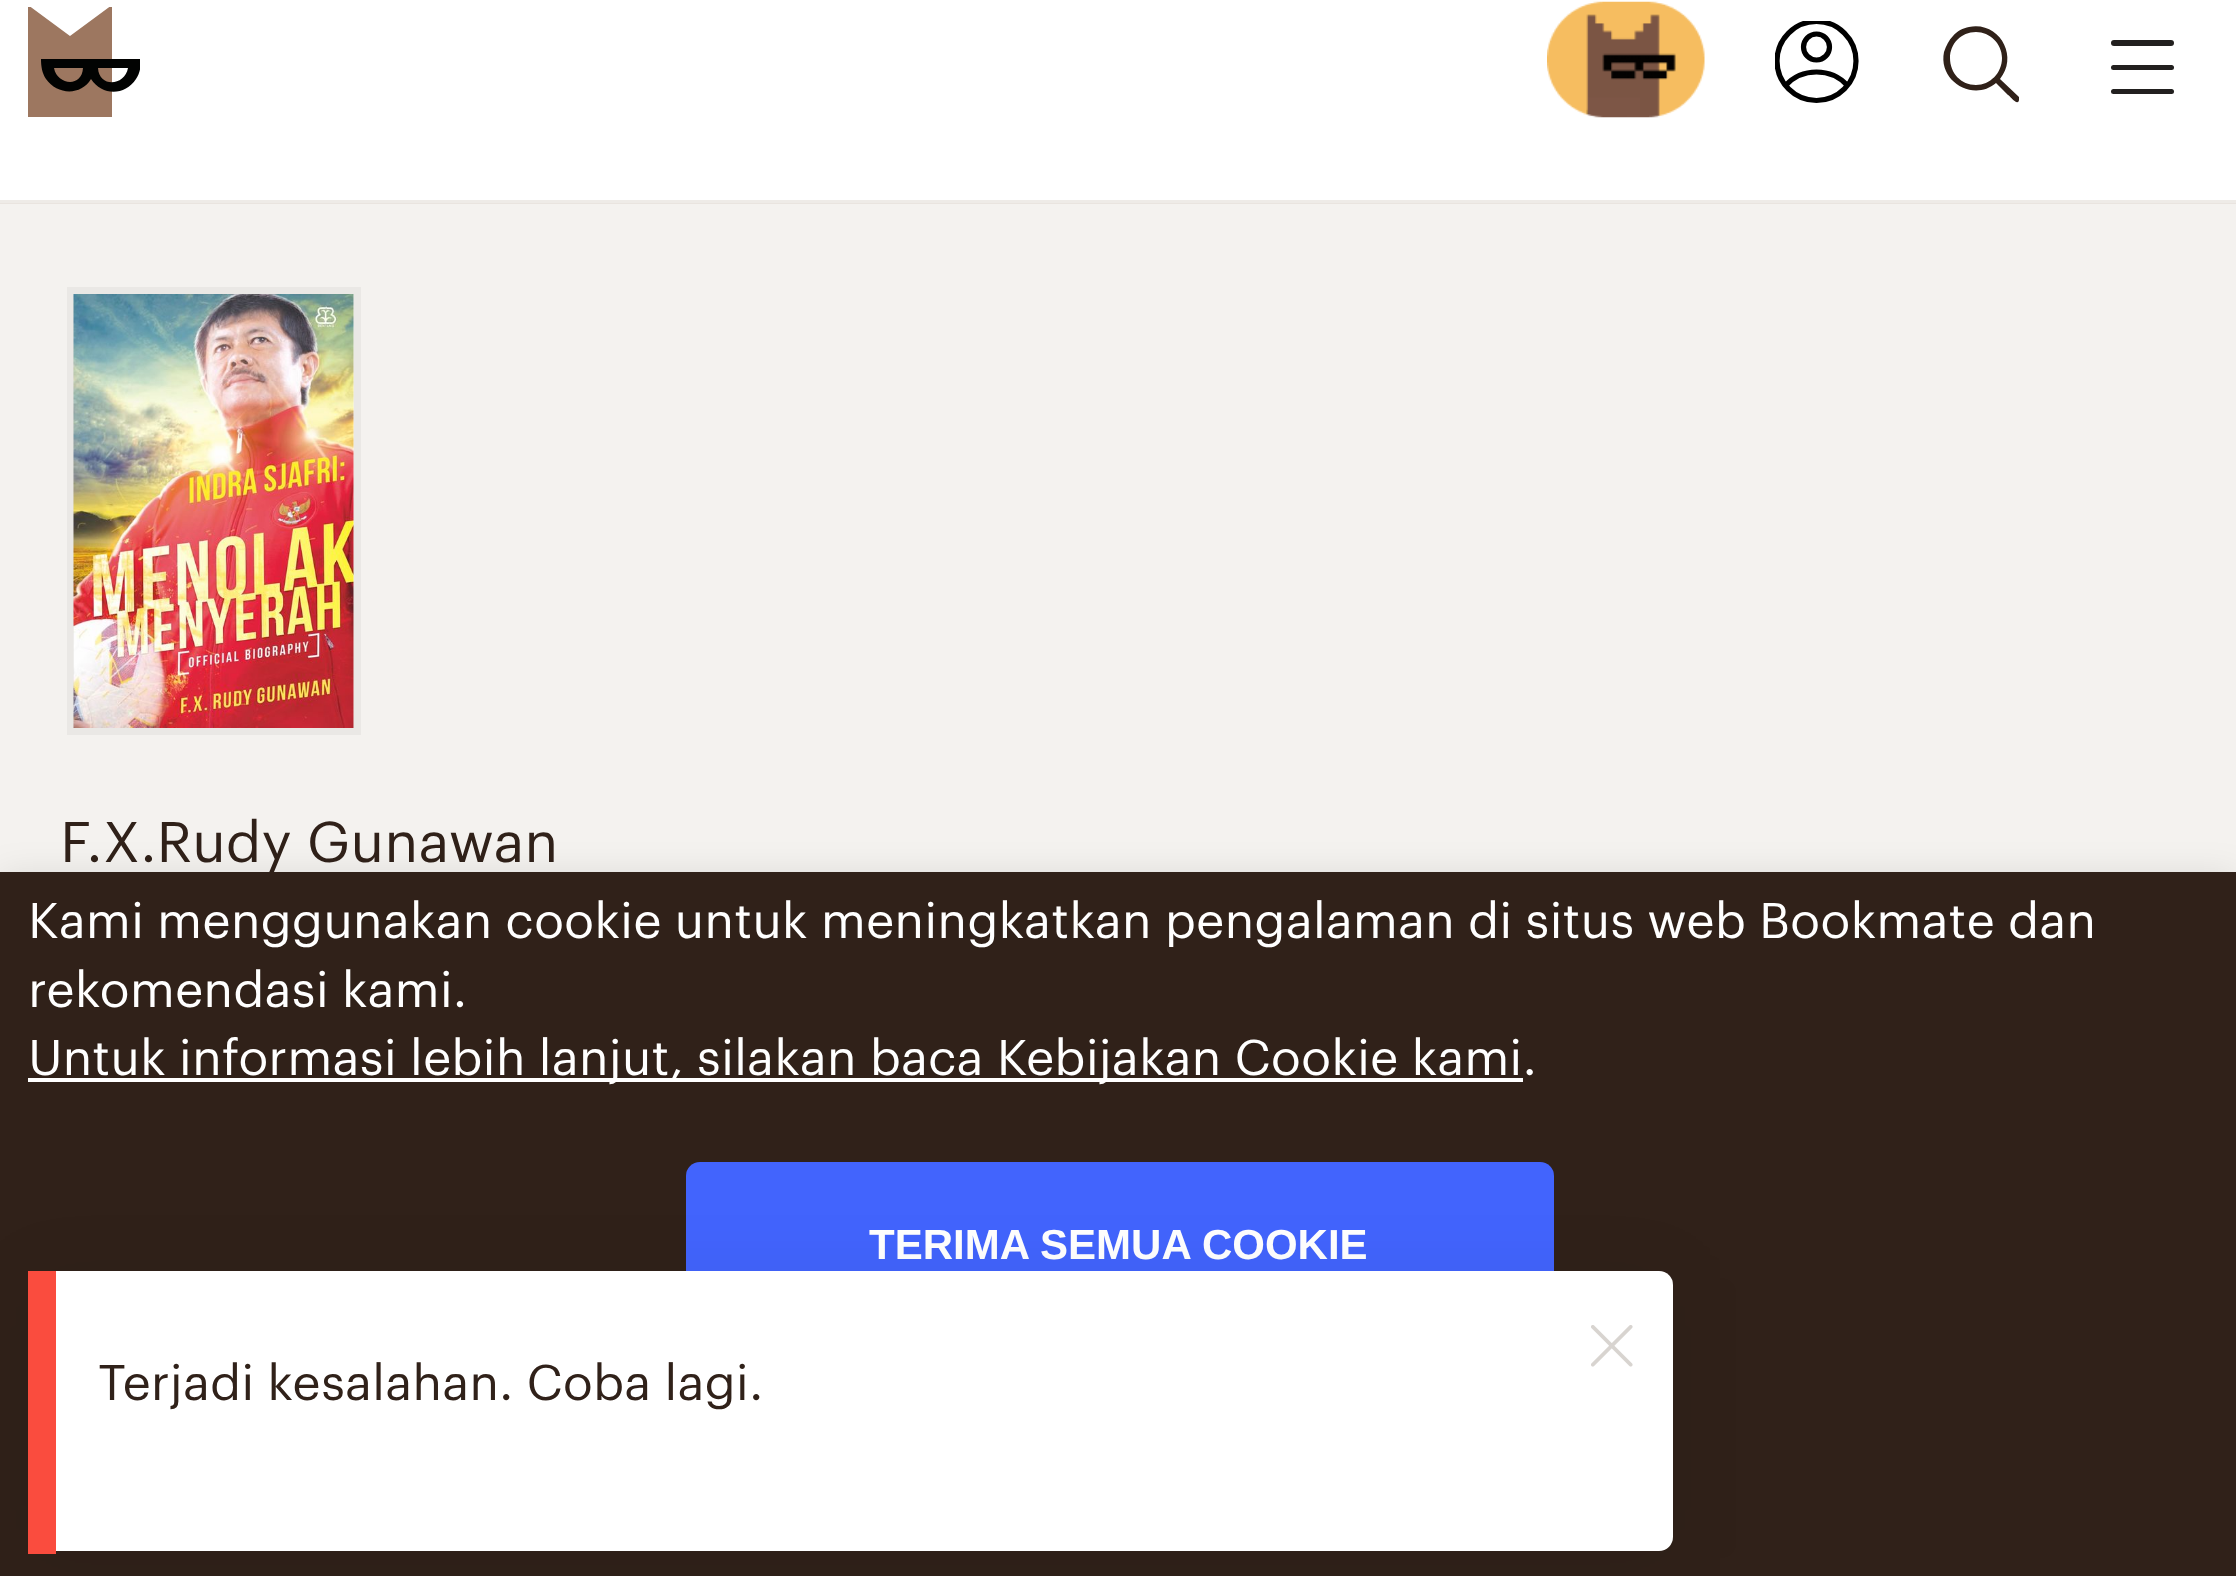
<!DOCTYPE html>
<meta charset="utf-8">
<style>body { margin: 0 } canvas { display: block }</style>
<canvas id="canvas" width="2236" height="1576"></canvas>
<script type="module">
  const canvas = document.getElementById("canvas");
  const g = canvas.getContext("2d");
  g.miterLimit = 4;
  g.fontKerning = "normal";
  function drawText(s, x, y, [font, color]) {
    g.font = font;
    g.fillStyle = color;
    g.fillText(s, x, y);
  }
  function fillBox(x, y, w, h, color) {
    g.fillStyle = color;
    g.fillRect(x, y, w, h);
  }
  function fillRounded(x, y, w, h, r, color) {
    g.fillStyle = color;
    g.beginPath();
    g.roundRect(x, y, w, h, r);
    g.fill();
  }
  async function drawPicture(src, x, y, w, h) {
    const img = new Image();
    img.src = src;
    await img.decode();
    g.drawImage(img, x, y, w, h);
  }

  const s1 = ["56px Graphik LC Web", "#302119"];
  const s2 = ["49px Graphik LC Web", "#FFFFFF"];
  const s3 = ["bold 42px Liberation Sans", "#FFFFFF"];
  const s4 = ["49px Graphik LC Web", "#302119"];

  fillBox(0, 0, 2236, 1576, "#F4F2EF");
  fillBox(0, 203, 2236, 1, "#E9E4DF");
  fillBox(0, 0, 2236, 200, "#FFFFFF");
  fillBox(0, 200, 2236, 3, "#EEEBE7");
  g.save();
  g.beginPath();
  g.rect(28, 7, 112, 112);
  g.clip();
  g.fillStyle = "#9D7760";
  g.beginPath();
  g.moveTo(112, 5);
  g.lineTo(70, 36);
  g.lineTo(28, 5);
  g.lineTo(28, 117);
  g.lineTo(112, 117);
  g.closePath();
  g.fill();
  g.fillStyle = "#020302";
  g.beginPath();
  g.moveTo(98, 68);
  g.lineTo(128, 68);
  g.bezierCurveTo(125, 86, 99, 88, 98, 68);
  g.closePath();
  g.moveTo(54, 68);
  g.lineTo(83, 68);
  g.bezierCurveTo(82, 88, 57, 85, 54, 68);
  g.closePath();
  g.moveTo(41, 59);
  g.bezierCurveTo(41, 66, 42, 73, 46, 79);
  g.bezierCurveTo(57, 95, 81, 96, 91, 79);
  g.bezierCurveTo(102, 96, 125, 96, 136, 79);
  g.bezierCurveTo(140, 73, 141, 66, 141, 59);
  g.closePath();
  g.fill();
  g.restore();
  await drawPicture("pic1.png", 1547, 1, 158, 117);
  g.save();
  g.beginPath();
  g.rect(1775, 21, 84, 84);
  g.clip();
  g.beginPath();
  g.arc(1816.5, 61, 39.5, 0, Math.PI * 2);
  g.strokeStyle = "#000000";
  g.lineWidth = 5.2;
  g.stroke();
  g.restore();
  g.beginPath();
  g.arc(1816.5, 47, 13, 0, Math.PI * 2);
  g.strokeStyle = "#000000";
  g.lineWidth = 5.2;
  g.stroke();
  g.beginPath();
  g.moveTo(1785.5, 85.5);
  g.bezierCurveTo(1802, 67.5, 1831, 67.5, 1847.5, 85.5);
  g.stroke();
  g.fillStyle = "#302119";
  g.beginPath();
  g.moveTo(2019, 97);
  g.lineTo(2000, 79);
  g.bezierCurveTo(2019, 56, 1999, 21, 1969, 27);
  g.bezierCurveTo(1963, 28, 1957, 31, 1953, 36);
  g.bezierCurveTo(1949, 40, 1946, 46, 1944, 52);
  g.bezierCurveTo(1938, 82, 1974, 102, 1996, 83);
  g.lineTo(2008, 95);
  g.bezierCurveTo(2009, 95, 2018, 107, 2019, 100);
  g.closePath();
  g.moveTo(1976, 85);
  g.bezierCurveTo(1961, 85, 1950, 73, 1950, 58);
  g.bezierCurveTo(1950, 44, 1961, 32, 1976, 32);
  g.bezierCurveTo(1990, 32, 2002, 44, 2002, 58);
  g.bezierCurveTo(2002, 73, 1990, 85, 1976, 85);
  g.closePath();
  g.fill();
  fillRounded(2111, 40, 63, 6, 3, "#22201F");
  fillRounded(2111, 65, 63, 5, 2.5, "#22201F");
  fillRounded(2111, 89, 63, 5, 2.5, "#22201F");
  await drawPicture("pic2.png", 73, 294, 281, 434);
  g.strokeStyle = "rgba(0, 0, 0, 0.04)";
  g.lineWidth = 7;
  g.strokeRect(70.5, 290.5, 287, 441);
  drawText("F.X.Rudy Gunawan", 60, 862, s1);
  g.fillStyle = "rgba(0, 0, 0, 0.1)";
  g.filter = "blur(17.5px)";
  g.beginPath();
  g.rect(0, 875, 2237, 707);
  g.fill();
  g.filter = "none";
  fillBox(0, 872, 2236, 704, "#302119");
  drawText("Kami menggunakan cookie untuk meningkatkan pengalaman di situs web Bookmate dan", 28, 938, s2);
  drawText("rekomendasi kami.", 28, 1007, s2);
  fillBox(28, 1078, 1495, 4, "#FFFFFF");
  drawText("Untuk informasi lebih lanjut, silakan baca Kebijakan Cookie kami.", 28, 1075, s2);
  fillRounded(686, 1162, 868, 168, 14, "#4264FD");
  drawText("TERIMA SEMUA COOKIE", 869, 1259, s3);
  g.fillStyle = "rgba(0, 0, 0, 0.07)";
  g.filter = "blur(35px)";
  g.beginPath();
  g.roundRect(28, 1278, 1645, 280, 14);
  g.fill();
  g.filter = "none";
  fillRounded(28, 1271, 1645, 280, 14, "#FFFFFF");
  fillBox(28, 1271, 28, 283, "#FA4C3E");
  await drawPicture("pic3.png", 1591, 1325, 42, 42);
  drawText("Terjadi kesalahan. Coba lagi.", 98, 1400, s4);
</script>
